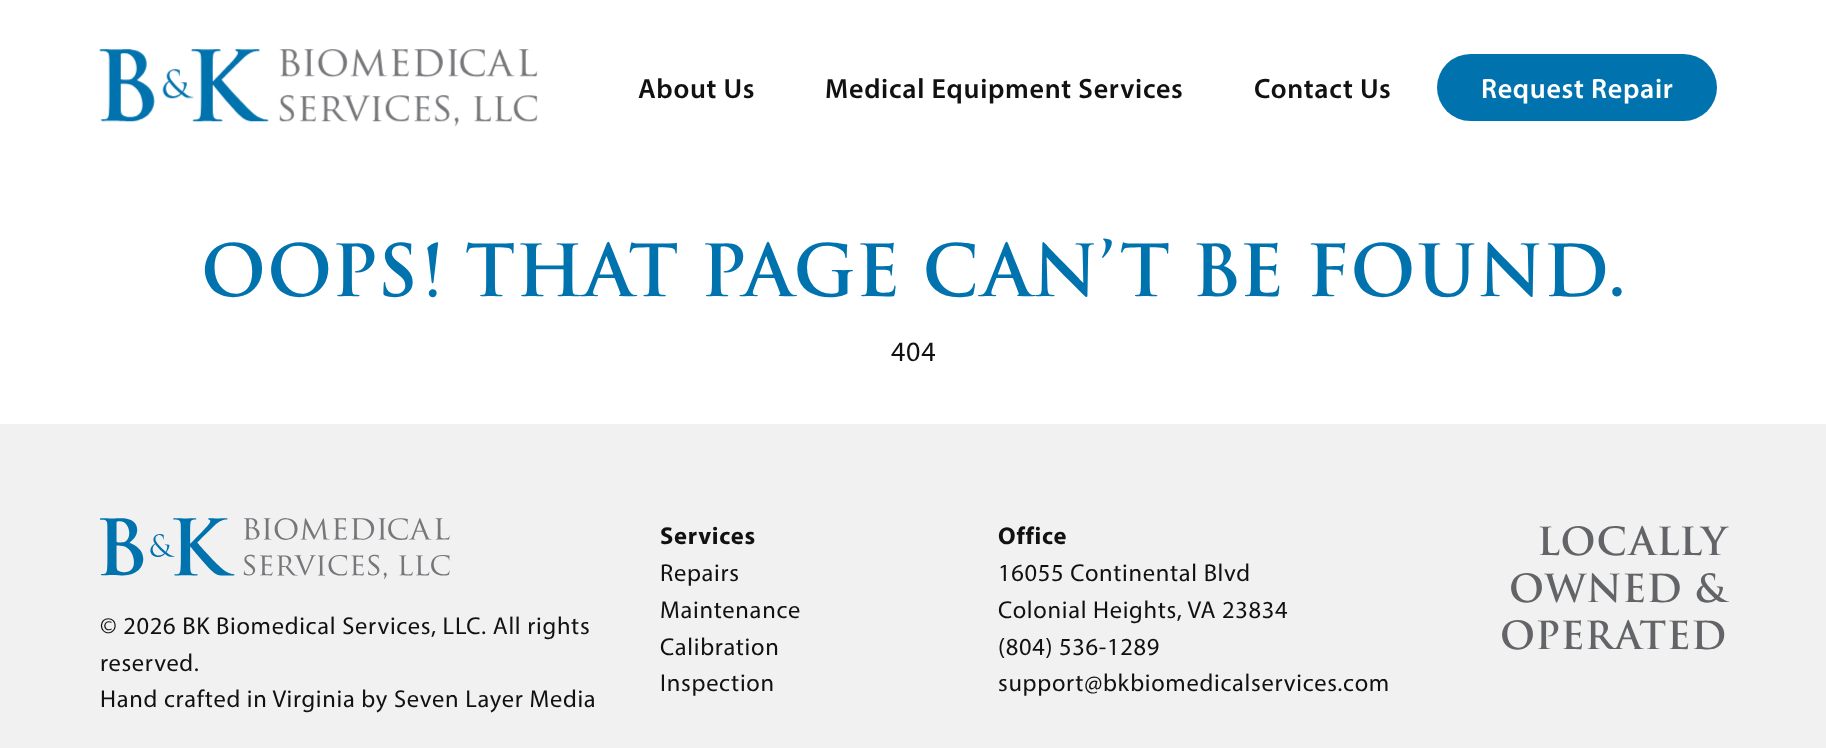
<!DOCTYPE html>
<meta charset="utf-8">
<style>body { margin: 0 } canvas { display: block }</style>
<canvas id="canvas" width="1826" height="748"></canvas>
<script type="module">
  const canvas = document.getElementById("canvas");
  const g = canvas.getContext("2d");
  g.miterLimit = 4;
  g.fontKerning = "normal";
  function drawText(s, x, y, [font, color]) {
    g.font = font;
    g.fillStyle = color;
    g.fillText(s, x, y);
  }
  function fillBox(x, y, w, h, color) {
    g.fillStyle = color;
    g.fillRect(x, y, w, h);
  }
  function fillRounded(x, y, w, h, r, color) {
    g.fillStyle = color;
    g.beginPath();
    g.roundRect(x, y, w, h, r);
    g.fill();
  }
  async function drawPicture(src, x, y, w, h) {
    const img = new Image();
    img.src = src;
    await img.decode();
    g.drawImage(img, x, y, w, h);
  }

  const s1 = ["600 28px Myriad", "#111111"];
  const s2 = ["600 28px Myriad", "#FFFFFF"];
  const s3 = ["600 70px 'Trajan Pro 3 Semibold'", "#0073AE"];
  const s4 = ["28px Myriad", "#111111"];
  const s5 = ["24.5px Myriad", "#111111"];
  const s6 = ["bold 24.5px Myriad", "#111111"];
  const s7 = ["600 37.75px 'Trajan Pro 3 Semibold'", "#626467"];

  fillBox(0, 0, 1826, 748, "#FFFFFF");
  await drawPicture("pic1.png", 99, 49, 439, 78);
  g.letterSpacing = "0.7px";
  drawText("About Us", 638, 98, s1);
  drawText("Medical Equipment Services", 825, 98, s1);
  drawText("Contact Us", 1254, 98, s1);
  fillRounded(1437, 54, 280, 67, 33.5, "#0073AE");
  drawText("Request Repair", 1481, 98, s2);
  drawText("OOPS! THAT PAGE CAN’T BE FOUND.", 201, 296, s3);
  drawText("404", 891, 361, s4);
  fillBox(0, 424, 1826, 324, "#F1F1F1");
  await drawPicture("pic2.png", 100, 518, 350, 61);
  drawText("© 2026 BK Biomedical Services, LLC. All rights", 100, 634, s5);
  drawText("reserved.", 100, 671, s5);
  drawText("Hand crafted in Virginia by Seven Layer Media", 100, 707, s5);
  drawText("Services", 660, 544, s6);
  drawText("Repairs", 660, 581, s5);
  drawText("Maintenance", 660, 618, s5);
  drawText("Calibration", 660, 655, s5);
  drawText("Inspection", 660, 691, s5);
  drawText("Office", 998, 544, s6);
  drawText("16055 Continental Blvd", 998, 581, s5);
  drawText("Colonial Heights, VA 23834", 998, 618, s5);
  drawText("(804) 536-1289", 998, 655, s5);
  drawText("support@bkbiomedicalservices.com", 998, 691, s5);
  drawText("LOCALLY", 1537, 555, s7);
  drawText("OWNED &", 1509, 602, s7);
  drawText("OPERATED", 1500, 649, s7);
</script>
